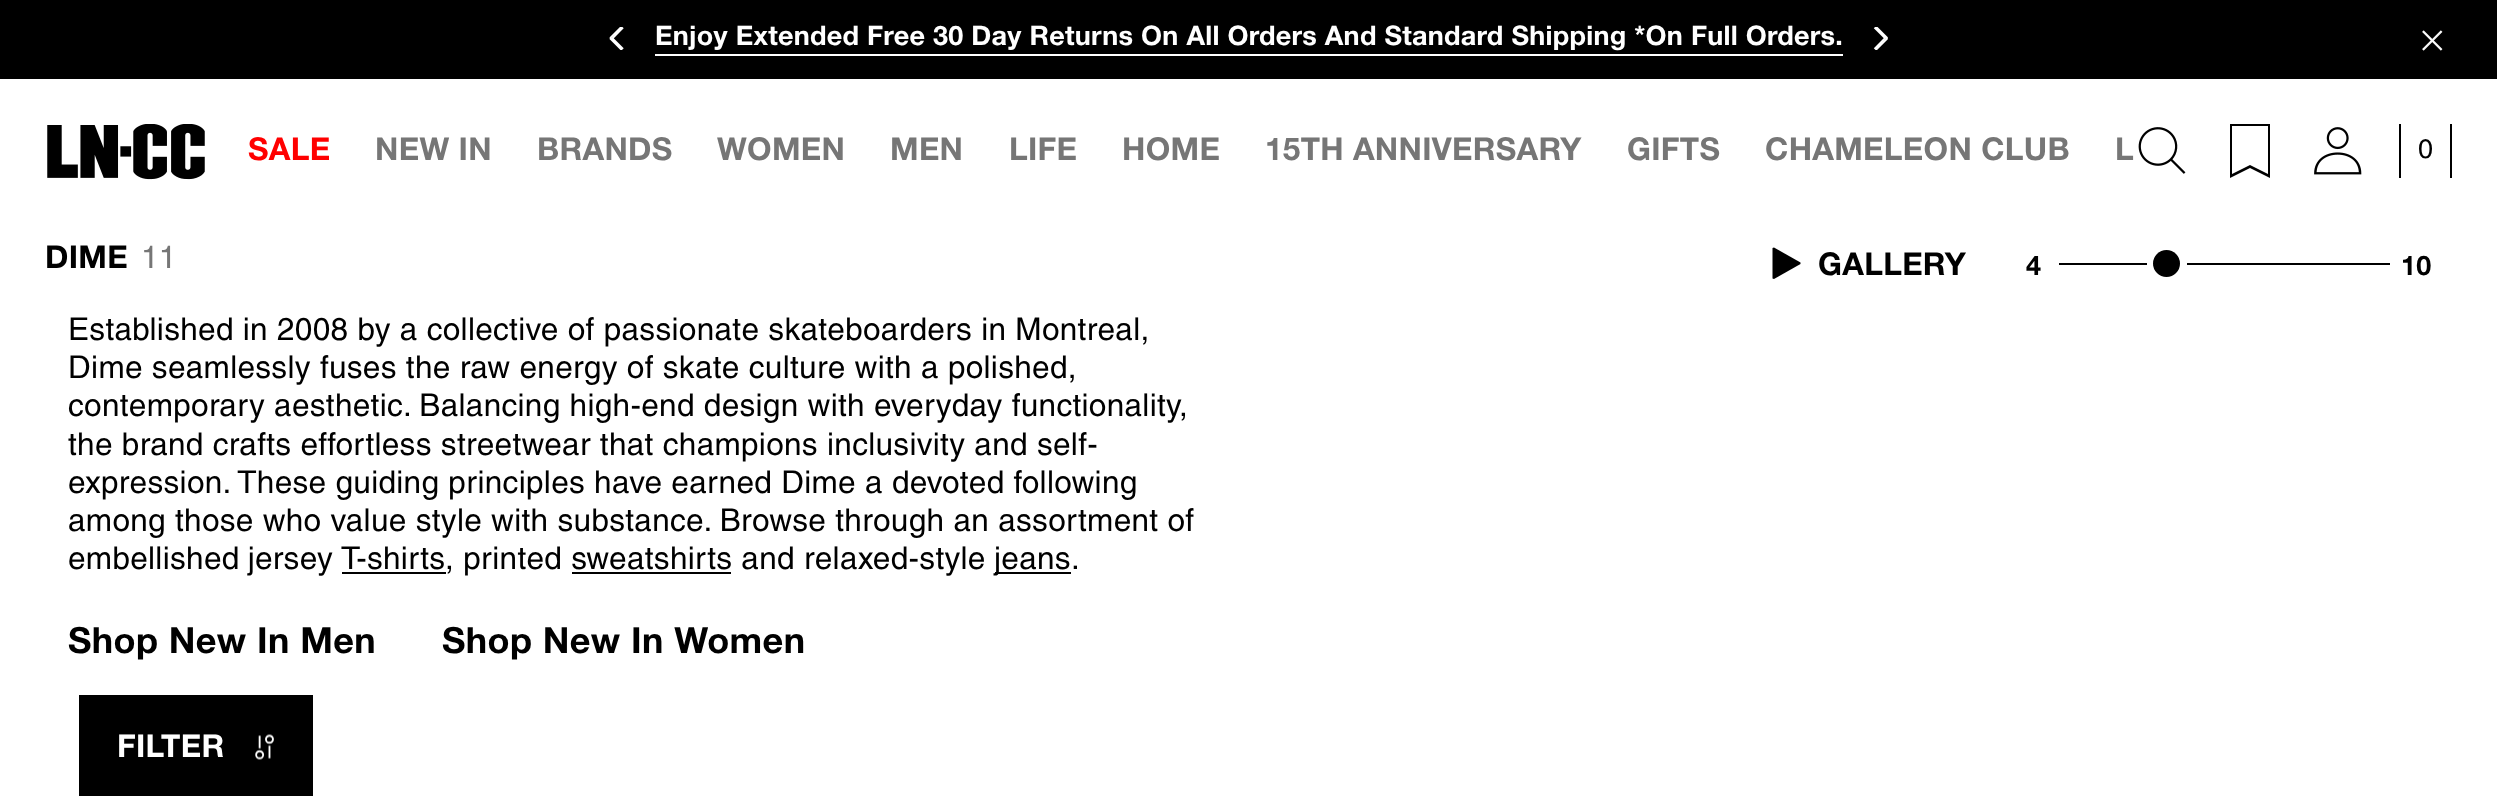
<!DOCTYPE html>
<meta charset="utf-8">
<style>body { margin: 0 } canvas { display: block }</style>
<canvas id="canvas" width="2497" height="796"></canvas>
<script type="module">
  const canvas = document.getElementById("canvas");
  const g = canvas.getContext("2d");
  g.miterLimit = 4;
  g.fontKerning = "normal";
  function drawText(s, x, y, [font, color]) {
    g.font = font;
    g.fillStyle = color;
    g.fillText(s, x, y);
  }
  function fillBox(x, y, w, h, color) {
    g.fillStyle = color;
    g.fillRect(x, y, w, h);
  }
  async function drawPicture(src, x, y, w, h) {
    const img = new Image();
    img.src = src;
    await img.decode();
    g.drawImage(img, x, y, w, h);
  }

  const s1 = ["bold 27px Helvetica Neue", "#FFFFFF"];
  const s2 = ["bold 31.5px Helvetica Neue", "#FF0000"];
  const s3 = ["bold 31.5px Helvetica Neue", "#767676"];
  const s4 = ["27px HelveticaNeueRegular", "#000000"];
  const s5 = ["bold 31.5px Helvetica Neue", "#000000"];
  const s6 = ["31.5px HelveticaNeueRegular", "#767676"];
  const s7 = ["bold 27px Helvetica Neue", "#000000"];
  const s8 = ["31.5px HelveticaNeueRegular", "#000000"];
  const s9 = ["bold 36px Helvetica Neue", "#000000"];
  const s10 = ["bold 31.5px Helvetica Neue", "#FFFFFF"];

  fillBox(0, 0, 2497, 796, "#FFFFFF");
  fillBox(0, 0, 2497, 79, "#000000");
  await drawPicture("pic1.png", 609, 27, 15, 23);
  g.letterSpacing = "0.27px";
  drawText("Enjoy Extended Free 30 Day Returns On All Orders And Standard Shipping *On Full Orders.", 655, 45, s1);
  fillBox(655, 54, 1188, 2, "#FFFFFF");
  await drawPicture("pic2.png", 1873, 27, 15, 23);
  await drawPicture("pic3.png", 2422, 30, 21, 21);
  await drawPicture("pic4.png", 47, 124, 158, 56);
  g.letterSpacing = "0.32px";
  drawText("SALE", 248, 160, s2);
  drawText("NEW IN", 375, 160, s3);
  drawText("BRANDS", 537, 160, s3);
  drawText("WOMEN", 717, 160, s3);
  drawText("MEN", 890, 160, s3);
  drawText("LIFE", 1009, 160, s3);
  drawText("HOME", 1122, 160, s3);
  drawText("15TH ANNIVERSARY", 1265, 160, s3);
  drawText("GIFTS", 1627, 160, s3);
  drawText("CHAMELEON CLUB", 1765, 160, s3);
  drawText("L", 2115, 160, s3);
  await drawPicture("pic5.png", 2138, 127, 48, 47);
  g.fillStyle = "#000000";
  g.beginPath();
  g.moveTo(2270, 178);
  g.lineTo(2250, 168);
  g.lineTo(2230, 178);
  g.lineTo(2230, 124);
  g.lineTo(2270, 124);
  g.closePath();
  g.moveTo(2232, 126);
  g.lineTo(2232, 174);
  g.lineTo(2250, 165);
  g.lineTo(2268, 174);
  g.lineTo(2268, 126);
  g.closePath();
  g.fill();
  await drawPicture("pic6.png", 2314, 127, 48, 48);
  fillBox(2450, 124, 2, 54, "#000000");
  fillBox(2399, 124, 2, 54, "#000000");
  g.letterSpacing = "0.27px";
  drawText("0", 2418, 158, s4);
  g.letterSpacing = "0.32px";
  drawText("DIME", 45, 268, s5);
  drawText("11", 141, 268, s6);
  g.fillStyle = "#000000";
  g.beginPath();
  g.moveTo(1774, 279);
  g.lineTo(1772.5, 278.5);
  g.lineTo(1772.5, 248);
  g.lineTo(1774, 247.5);
  g.lineTo(1800.5, 262.5);
  g.lineTo(1800.5, 264);
  g.closePath();
  g.fill();
  drawText("GALLERY", 1818, 275, s5);
  g.letterSpacing = "0.27px";
  drawText("4", 2026, 275, s7);
  fillBox(2059, 263, 88, 2, "#000000");
  g.beginPath();
  g.arc(2166.5, 263.5, 13.5, 0, Math.PI * 2);
  g.fill();
  fillBox(2187, 263, 203, 2, "#000000");
  drawText("10", 2401, 275, s7);
  g.letterSpacing = "0.32px";
  drawText("Established in 2008 by a collective of passionate skateboarders in Montreal,", 68, 340, s8);
  drawText("Dime seamlessly fuses the raw energy of skate culture with a polished,", 68, 378, s8);
  drawText("contemporary aesthetic. Balancing high-end design with everyday functionality,", 68, 416, s8);
  drawText("the brand crafts effortless streetwear that champions inclusivity and self-", 68, 455, s8);
  drawText("expression. These guiding principles have earned Dime a devoted following", 68, 493, s8);
  drawText("among those who value style with substance. Browse through an assortment of", 68, 531, s8);
  g.wordSpacing = "-1px";
  drawText("embellished jersey", 68, 569, s8);
  g.wordSpacing = "0px";
  drawText("T-shirts", 341, 569, s8);
  fillBox(342, 572, 104, 2, "#000000");
  drawText(", printed sweatshirts and relaxed-style", 445, 569, s8);
  fillBox(995, 572, 76, 2, "#000000");
  drawText("jeans", 994, 569, s8);
  drawText(".", 1071, 569, s8);
  fillBox(572, 572, 159, 2, "#000000");
  g.letterSpacing = "0.4px";
  drawText("Shop New In Men", 68, 653, s9);
  drawText("Shop New In Women", 442, 653, s9);
  fillBox(79, 695, 234, 101, "#000000");
  g.letterSpacing = "0.32px";
  drawText("FILTER", 117, 757, s10);
  await drawPicture("pic7.png", 255, 734, 19, 26);
</script>
